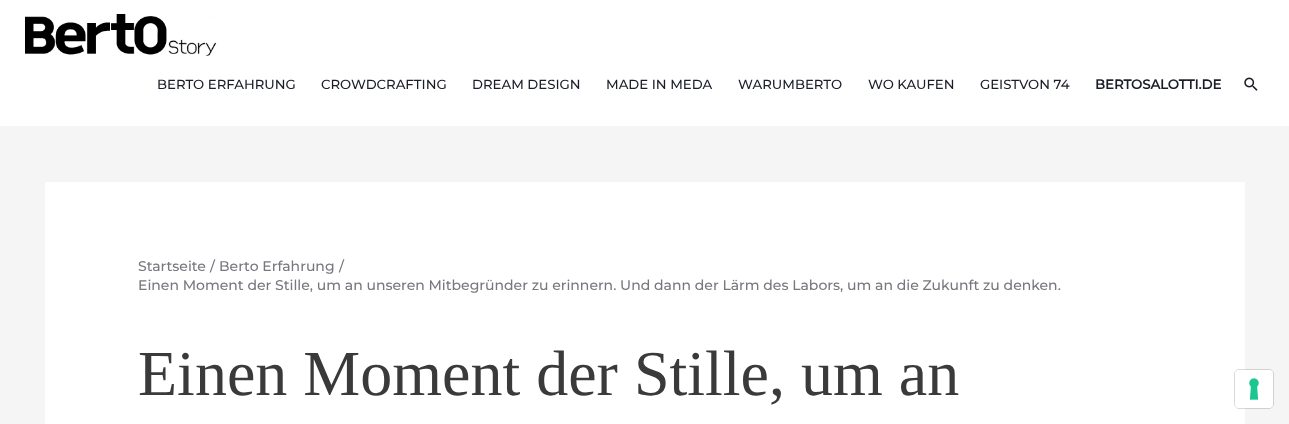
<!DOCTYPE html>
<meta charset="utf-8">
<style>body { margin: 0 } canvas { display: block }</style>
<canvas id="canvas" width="1289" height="424"></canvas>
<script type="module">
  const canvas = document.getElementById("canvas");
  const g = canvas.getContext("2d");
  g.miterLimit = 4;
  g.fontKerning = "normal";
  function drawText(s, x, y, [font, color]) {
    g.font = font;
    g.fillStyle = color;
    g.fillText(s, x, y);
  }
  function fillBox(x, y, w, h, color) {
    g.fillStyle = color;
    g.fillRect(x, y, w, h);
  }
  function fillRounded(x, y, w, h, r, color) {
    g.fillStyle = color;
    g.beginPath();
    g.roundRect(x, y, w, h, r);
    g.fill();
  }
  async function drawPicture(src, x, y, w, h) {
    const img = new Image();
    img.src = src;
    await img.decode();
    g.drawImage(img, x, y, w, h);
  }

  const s1 = ["100 13.25px Montserrat", "#1B1E28"];
  const s2 = ["bold 13.25px Montserrat", "#1B1E28"];
  const s3 = ["100 14px Montserrat", "#76787E"];
  const s4 = ["64px Liberation Serif", "#3A3A3A"];

  fillBox(0, 0, 1289, 424, "#F5F5F5");
  fillBox(0, 0, 1289, 126, "#FFFFFF");
  await drawPicture("pic1.png", 25, 14, 192, 42);
  drawText("BERTO ERFAHRUNG", 157, 89, s1);
  drawText("CROWDCRAFTING", 321, 89, s1);
  drawText("DREAM DESIGN", 472, 89, s1);
  drawText("MADE IN MEDA", 606, 89, s1);
  drawText("WARUMBERTO", 738, 89, s1);
  drawText("WO KAUFEN", 868, 89, s1);
  drawText("GEISTVON 74", 980, 89, s1);
  drawText("BERTOSALOTTI.DE", 1095, 89, s2);
  await drawPicture("pic2.png", 1244, 77, 14, 14);
  fillBox(45, 182, 1200, 242, "#FFFFFF");
  drawText("Startseite", 138, 271, s3);
  drawText("/", 210, 271, s3);
  drawText("Berto Erfahrung", 219, 271, s3);
  drawText("/", 339, 271, s3);
  drawText("Einen Moment der Stille, um an unseren Mitbegründer zu erinnern. Und dann der Lärm des Labors, um an die Zukunft zu denken.", 138, 290, s3);
  drawText("Einen Moment der Stille, um an", 138, 395, s4);
  g.beginPath();
  g.roundRect(1234.5, 369.5, 39, 39, 4.5);
  g.strokeStyle = "rgba(0, 0, 0, 0.15)";
  g.stroke();
  fillRounded(1235, 370, 38, 38, 4, "#FFFFFF");
  await drawPicture("pic3.png", 1249, 378, 10, 22);
</script>
